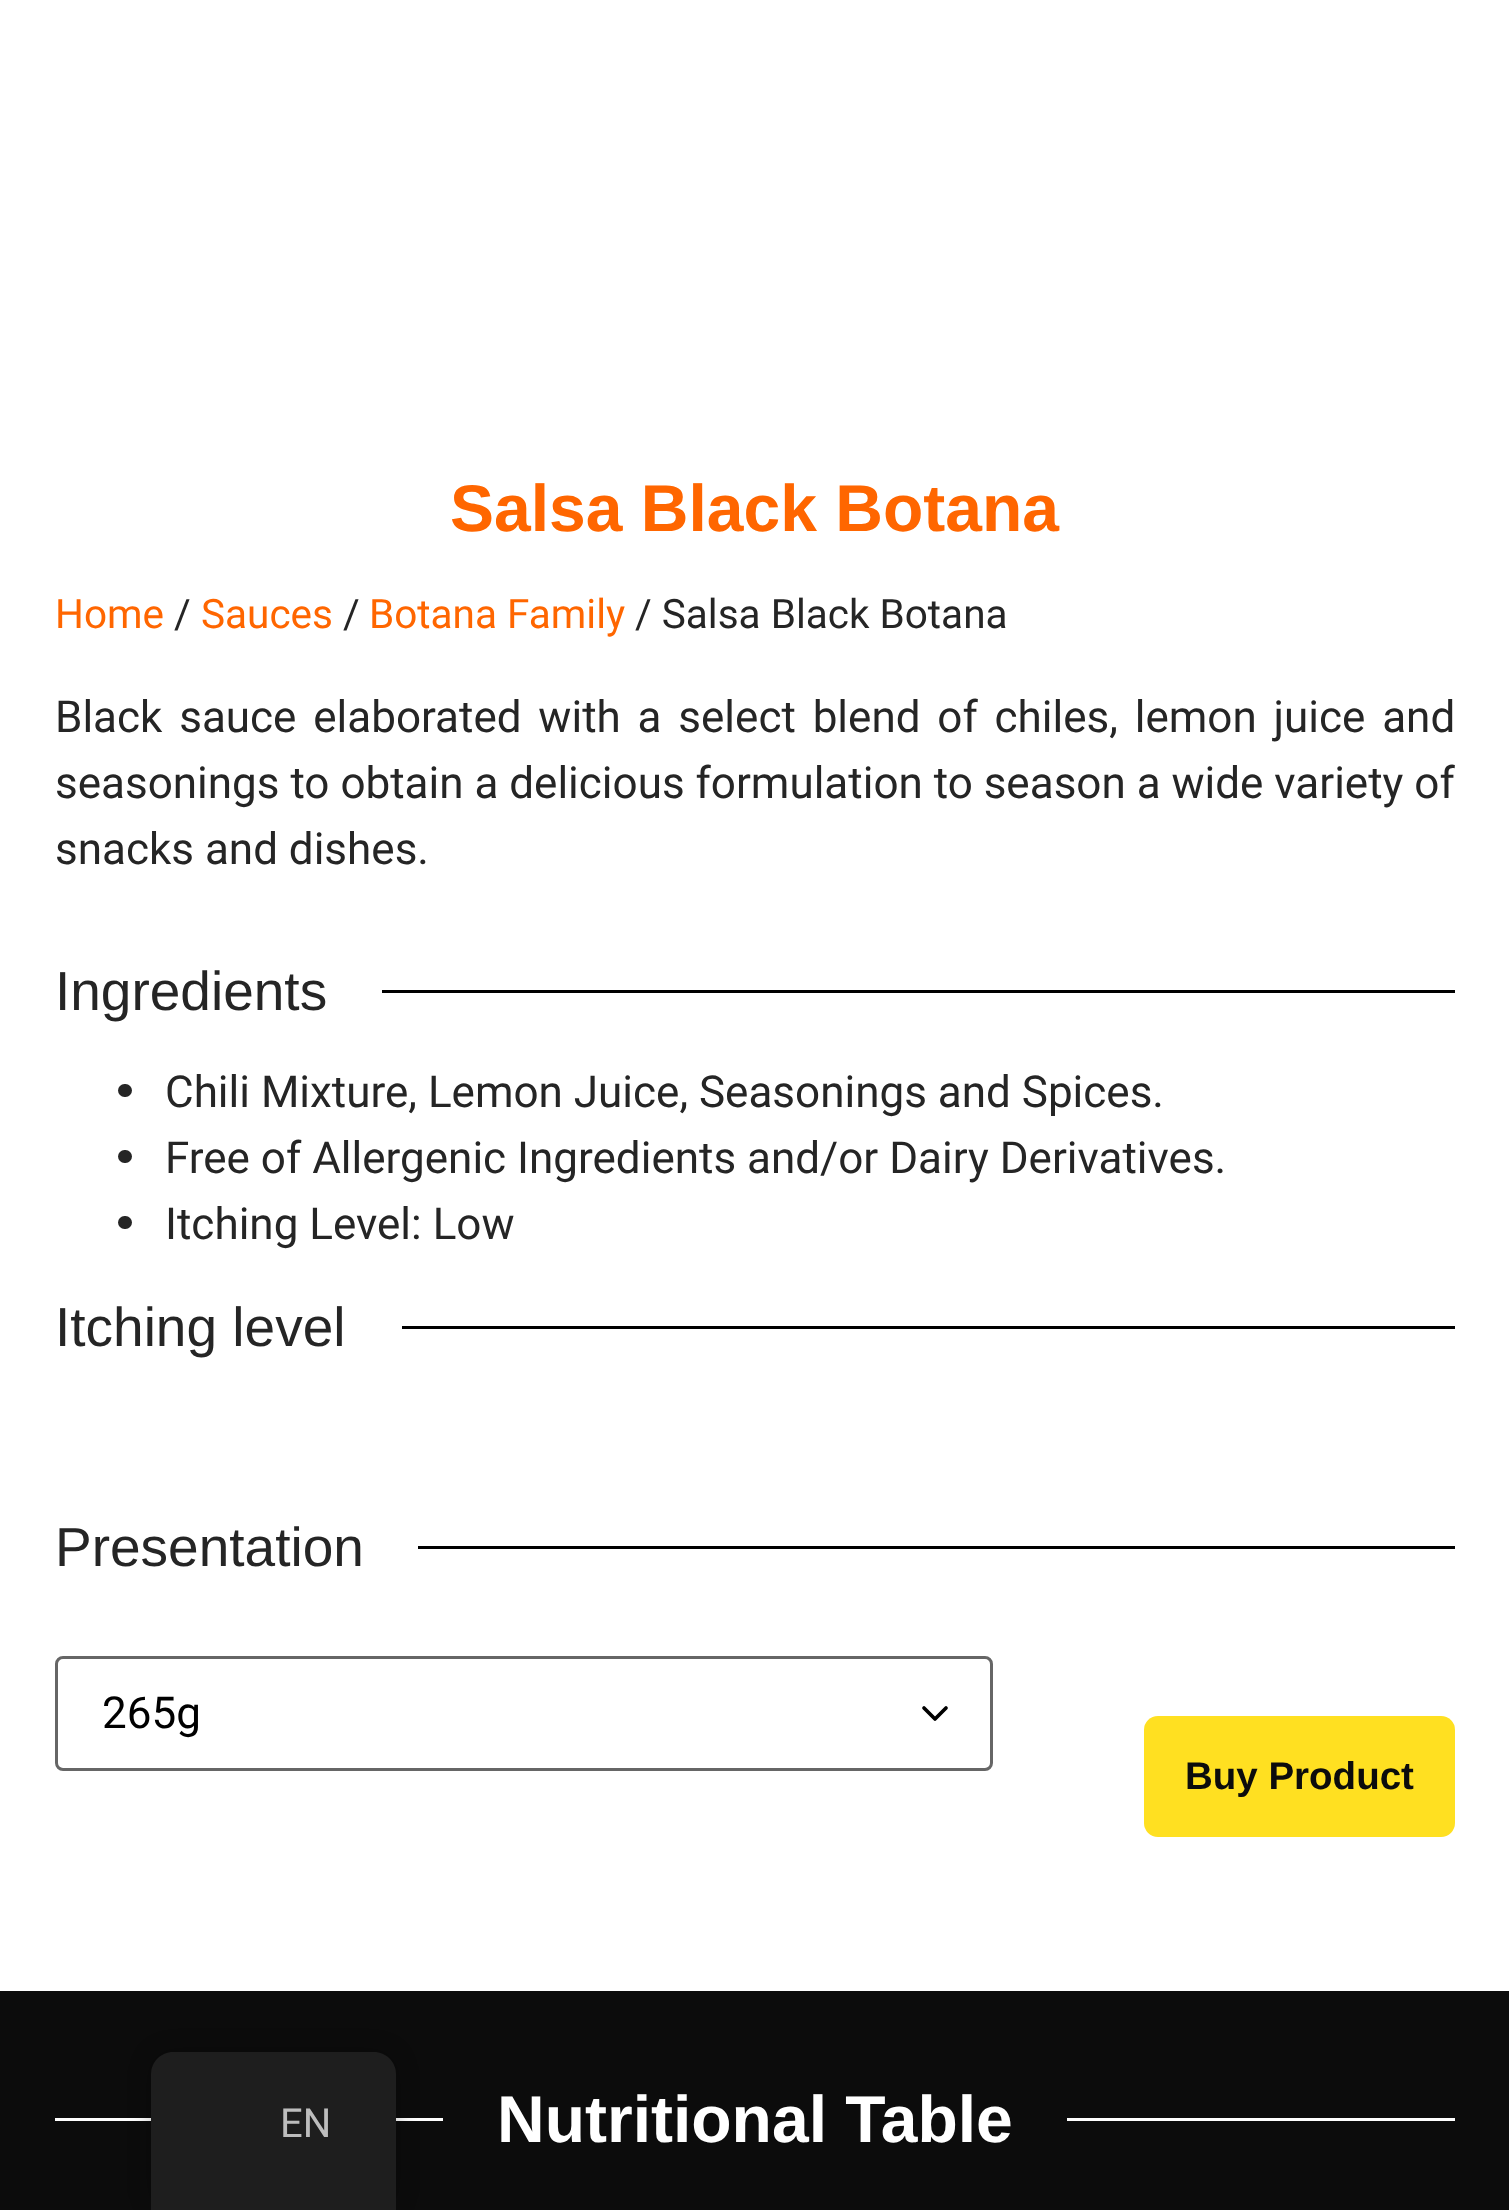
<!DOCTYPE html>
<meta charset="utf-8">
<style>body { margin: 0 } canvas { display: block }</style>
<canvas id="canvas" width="1509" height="2210"></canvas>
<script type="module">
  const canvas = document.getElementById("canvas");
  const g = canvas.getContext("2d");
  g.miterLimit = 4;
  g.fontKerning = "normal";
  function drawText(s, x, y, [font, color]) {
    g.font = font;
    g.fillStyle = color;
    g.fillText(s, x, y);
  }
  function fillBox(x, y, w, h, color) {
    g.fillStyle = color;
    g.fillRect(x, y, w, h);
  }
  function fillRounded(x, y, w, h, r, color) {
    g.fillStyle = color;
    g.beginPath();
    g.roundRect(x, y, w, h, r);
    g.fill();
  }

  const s1 = ["bold 66px Liberation Sans", "#FF6600"];
  const s2 = ["40.5px Roboto", "#FF6600"];
  const s3 = ["40.5px Roboto", "#252525"];
  const s4 = ["44px Roboto", "#252525"];
  const s5 = ["55px Liberation Sans", "#252525"];
  const s6 = ["44px Roboto", "#000000"];
  const s7 = ["bold 38.5px Liberation Sans", "#0C0C0C"];
  const s8 = ["bold 66px Liberation Sans", "#FFFFFF"];
  const s9 = ["40px Roboto", "#BDBDBD"];

  fillBox(0, 0, 1509, 2210, "#FFFFFF");
  drawText("Salsa Black Botana", 450, 531, s1);
  drawText("Home", 55, 628, s2);
  drawText("/", 174, 628, s3);
  drawText("Sauces", 201, 628, s2);
  drawText("/", 343, 628, s3);
  drawText("Botana Family", 369, 628, s2);
  drawText("/ Salsa Black Botana", 635, 628, s3);
  g.wordSpacing = "5.9px";
  drawText("Black sauce elaborated with a select blend of chiles, lemon juice and", 55, 732, s4);
  g.wordSpacing = "0px";
  drawText("seasonings to obtain a delicious formulation to season a wide variety of", 55, 798, s4);
  drawText("snacks and dishes.", 55, 864, s4);
  drawText("Ingredients", 55, 1010, s5);
  fillBox(382, 990, 1073, 3, "#000000");
  fillRounded(118, 1084, 14, 13, 6.5, "#252525");
  drawText("Chili Mixture, Lemon Juice, Seasonings and Spices.", 165, 1107, s4);
  fillRounded(118, 1150, 14, 13, 6.5, "#252525");
  drawText("Free of Allergenic Ingredients and/or Dairy Derivatives.", 165, 1173, s4);
  fillRounded(118, 1216, 14, 13, 6.5, "#252525");
  drawText("Itching Level: Low", 165, 1239, s4);
  drawText("Itching level", 55, 1346, s5);
  fillBox(402, 1326, 1053, 3, "#000000");
  drawText("Presentation", 55, 1566, s5);
  fillBox(418, 1546, 1037, 3, "#000000");
  g.beginPath();
  g.moveTo(924, 1708);
  g.lineTo(935, 1719);
  g.lineTo(946, 1708);
  g.strokeStyle = "#000000";
  g.lineWidth = 3.7;
  g.lineCap = "round";
  g.lineJoin = "round";
  g.stroke();
  g.beginPath();
  g.roundRect(56.5, 1657.5, 935, 112, 6.5);
  g.strokeStyle = "#666666";
  g.lineWidth = 3;
  g.lineJoin = "miter";
  g.stroke();
  drawText("265g", 102, 1728, s6);
  fillRounded(1144, 1716, 311, 121, 14, "#FFE021");
  drawText("Buy Product", 1185, 1789, s7);
  fillBox(0, 1991, 1509, 219, "#0C0C0C");
  fillBox(55, 2118, 388, 3, "#FFFFFF");
  drawText("Nutritional Table", 497, 2142, s8);
  fillBox(1067, 2118, 388, 3, "#FFFFFF");
  g.fillStyle = "rgba(0, 0, 0, 0.25)";
  g.filter = "blur(11px)";
  g.beginPath();
  g.roundRect(151, 2052, 245, 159, 22);
  g.fill();
  g.filter = "none";
  g.fillStyle = "#1E1E1E";
  g.beginPath();
  g.moveTo(173, 2052);
  g.lineTo(374, 2052);
  g.bezierCurveTo(386, 2052, 396, 2062, 396, 2074);
  g.lineTo(396, 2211);
  g.lineTo(151, 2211);
  g.lineTo(151, 2074);
  g.bezierCurveTo(151, 2062, 161, 2052, 173, 2052);
  g.closePath();
  g.fill();
  drawText("EN", 280, 2137, s9);
</script>
